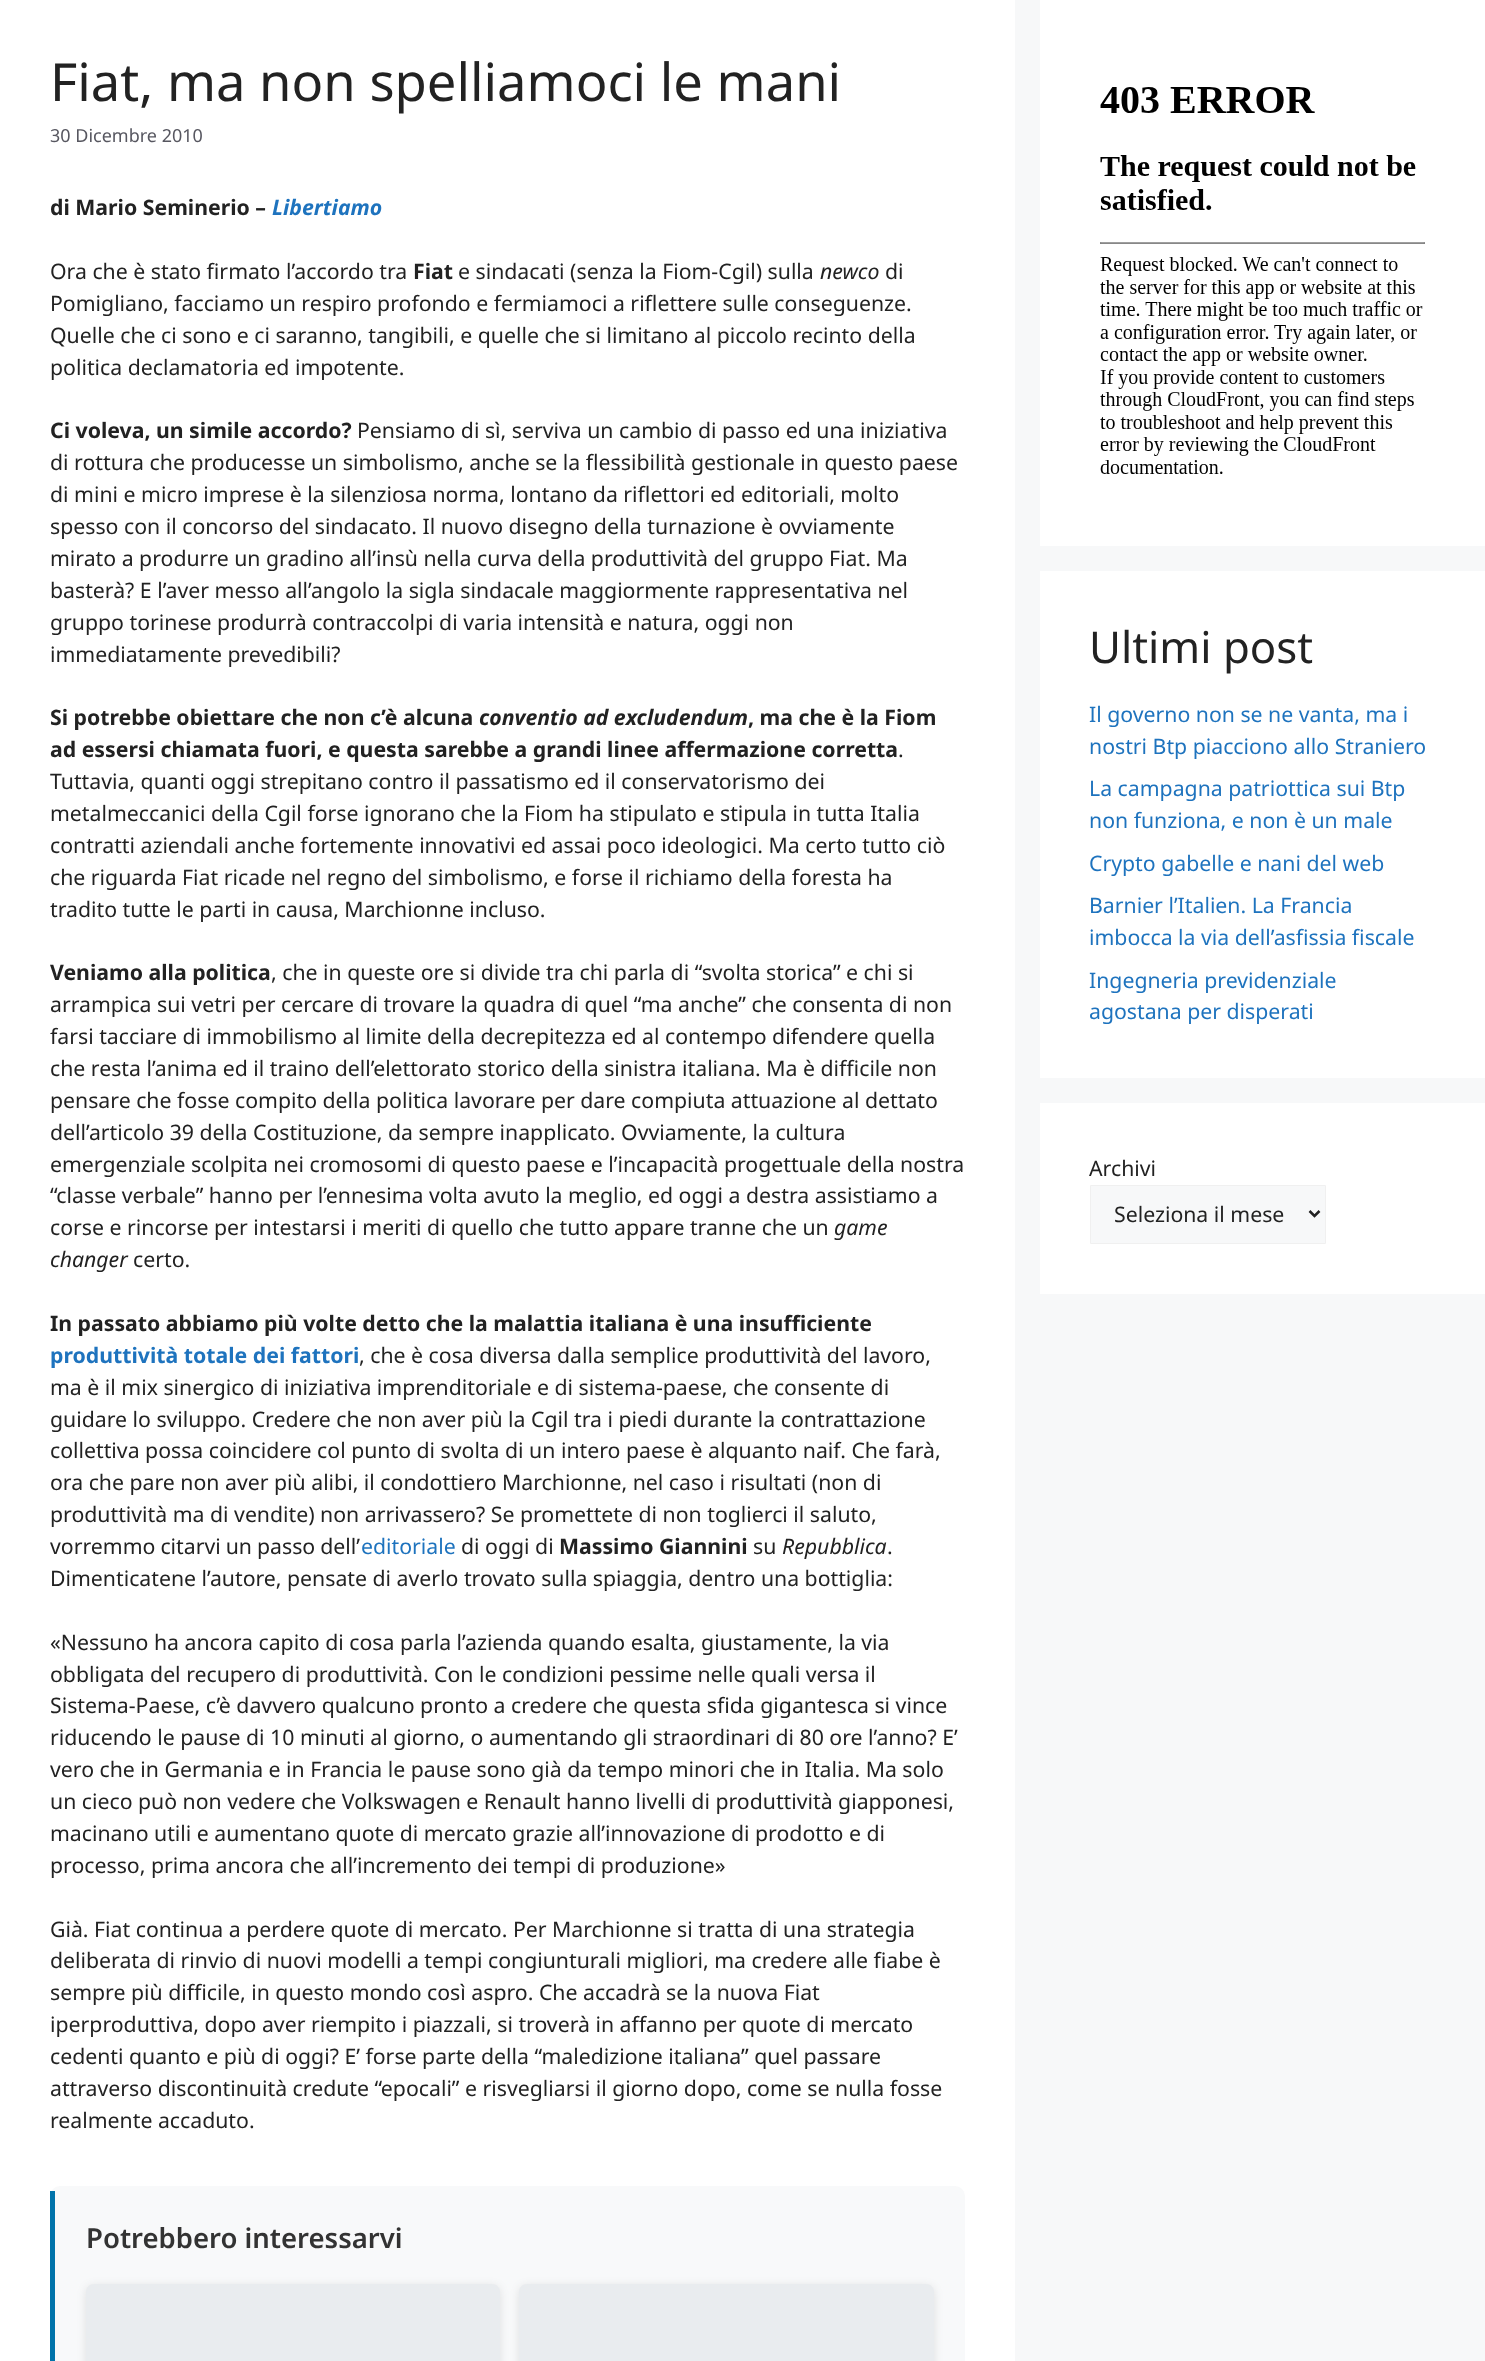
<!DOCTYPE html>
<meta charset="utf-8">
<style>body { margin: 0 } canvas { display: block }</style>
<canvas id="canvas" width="1485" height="2361"></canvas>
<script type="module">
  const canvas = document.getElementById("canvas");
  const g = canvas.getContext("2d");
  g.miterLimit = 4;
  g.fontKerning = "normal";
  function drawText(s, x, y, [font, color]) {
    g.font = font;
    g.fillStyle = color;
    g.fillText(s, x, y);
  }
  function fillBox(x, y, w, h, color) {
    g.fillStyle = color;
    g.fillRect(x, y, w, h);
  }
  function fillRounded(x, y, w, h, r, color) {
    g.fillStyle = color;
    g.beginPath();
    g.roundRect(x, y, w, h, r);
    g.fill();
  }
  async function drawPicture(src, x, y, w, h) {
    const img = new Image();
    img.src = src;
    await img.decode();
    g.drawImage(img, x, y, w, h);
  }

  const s1 = ["52.5px Noto Sans", "#222222"];
  const s2 = ["18px Noto Sans", "#575760"];
  const s3 = ["bold 21.25px Noto Sans", "#222222"];
  const s4 = ["italic bold 21.25px Noto Sans", "#1E73BE"];
  const s5 = ["21.25px Noto Sans", "#222222"];
  const s6 = ["italic 21.25px Noto Sans", "#222222"];
  const s7 = ["italic bold 21.25px Noto Sans", "#222222"];
  const s8 = ["bold 21.25px Noto Sans", "#1E73BE"];
  const s9 = ["21.25px Noto Sans", "#1E73BE"];
  const s10 = ["600 27.5px Noto Sans", "#333333"];
  const s11 = ["43.75px Noto Sans", "#222222"];

  fillBox(0, 0, 1485, 2361, "#F7F8F9");
  fillBox(0, 0, 1015, 2361, "#FFFFFF");
  drawText("Fiat, ma non spelliamoci le mani", 50, 101, s1);
  drawText("30 Dicembre 2010", 50, 142, s2);
  drawText("di Mario Seminerio –", 50, 215, s3);
  drawText("Libertiamo", 272, 215, s4);
  drawText("Ora che è stato firmato l’accordo tra", 50, 279, s5);
  drawText("Fiat", 413, 279, s3);
  drawText("e sindacati (senza la Fiom-Cgil) sulla", 458, 279, s5);
  drawText("newco", 820, 279, s6);
  drawText("di", 885, 279, s5);
  drawText("Pomigliano, facciamo un respiro profondo e fermiamoci a riflettere sulle conseguenze.", 50, 311, s5);
  drawText("Quelle che ci sono e ci saranno, tangibili, e quelle che si limitano al piccolo recinto della", 50, 343, s5);
  drawText("politica declamatoria ed impotente.", 50, 375, s5);
  drawText("Ci voleva, un simile accordo?", 50, 438, s3);
  drawText("Pensiamo di sì, serviva un cambio di passo ed una iniziativa", 357, 438, s5);
  drawText("di rottura che producesse un simbolismo, anche se la flessibilità gestionale in questo paese", 50, 470, s5);
  drawText("di mini e micro imprese è la silenziosa norma, lontano da riflettori ed editoriali, molto", 50, 502, s5);
  drawText("spesso con il concorso del sindacato. Il nuovo disegno della turnazione è ovviamente", 50, 534, s5);
  drawText("mirato a produrre un gradino all’insù nella curva della produttività del gruppo Fiat. Ma", 50, 566, s5);
  drawText("basterà? E l’aver messo all’angolo la sigla sindacale maggiormente rappresentativa nel", 50, 598, s5);
  drawText("gruppo torinese produrrà contraccolpi di varia intensità e natura, oggi non", 50, 630, s5);
  drawText("immediatamente prevedibili?", 50, 662, s5);
  drawText("Si potrebbe obiettare che non c’è alcuna", 50, 725, s3);
  drawText("conventio ad excludendum", 479, 725, s7);
  drawText(", ma che è la Fiom", 748, 725, s3);
  drawText("ad essersi chiamata fuori, e questa sarebbe a grandi linee affermazione corretta", 50, 757, s3);
  drawText(".", 898, 757, s5);
  drawText("Tuttavia, quanti oggi strepitano contro il passatismo ed il conservatorismo dei", 50, 789, s5);
  drawText("metalmeccanici della Cgil forse ignorano che la Fiom ha stipulato e stipula in tutta Italia", 50, 821, s5);
  drawText("contratti aziendali anche fortemente innovativi ed assai poco ideologici. Ma certo tutto ciò", 50, 853, s5);
  drawText("che riguarda Fiat ricade nel regno del simbolismo, e forse il richiamo della foresta ha", 50, 885, s5);
  drawText("tradito tutte le parti in causa, Marchionne incluso.", 50, 917, s5);
  drawText("Veniamo alla politica", 50, 980, s3);
  drawText(", che in queste ore si divide tra chi parla di “svolta storica” e chi si", 271, 980, s5);
  drawText("arrampica sui vetri per cercare di trovare la quadra di quel “ma anche” che consenta di non", 50, 1012, s5);
  drawText("farsi tacciare di immobilismo al limite della decrepitezza ed al contempo difendere quella", 50, 1044, s5);
  drawText("che resta l’anima ed il traino dell’elettorato storico della sinistra italiana. Ma è difficile non", 50, 1076, s5);
  drawText("pensare che fosse compito della politica lavorare per dare compiuta attuazione al dettato", 50, 1108, s5);
  drawText("dell’articolo 39 della Costituzione, da sempre inapplicato. Ovviamente, la cultura", 50, 1140, s5);
  drawText("emergenziale scolpita nei cromosomi di questo paese e l’incapacità progettuale della nostra", 50, 1172, s5);
  drawText("“classe verbale” hanno per l’ennesima volta avuto la meglio, ed oggi a destra assistiamo a", 50, 1203, s5);
  drawText("corse e rincorse per intestarsi i meriti di quello che tutto appare tranne che un", 50, 1235, s5);
  drawText("game", 834, 1235, s6);
  drawText("changer", 50, 1267, s6);
  drawText("certo.", 133, 1267, s5);
  drawText("In passato abbiamo più volte detto che la malattia italiana è una insufficiente", 50, 1331, s3);
  drawText("produttività totale dei fattori", 50, 1363, s8);
  drawText(", che è cosa diversa dalla semplice produttività del lavoro,", 359, 1363, s5);
  drawText("ma è il mix sinergico di iniziativa imprenditoriale e di sistema-paese, che consente di", 50, 1395, s5);
  drawText("guidare lo sviluppo. Credere che non aver più la Cgil tra i piedi durante la contrattazione", 50, 1427, s5);
  drawText("collettiva possa coincidere col punto di svolta di un intero paese è alquanto naif. Che farà,", 50, 1458, s5);
  drawText("ora che pare non aver più alibi, il condottiero Marchionne, nel caso i risultati (non di", 50, 1490, s5);
  drawText("produttività ma di vendite) non arrivassero? Se promettete di non toglierci il saluto,", 50, 1522, s5);
  g.wordSpacing = "-0.5px";
  drawText("vorremmo citarvi un passo dell’", 50, 1554, s5);
  g.wordSpacing = "0px";
  drawText("editoriale", 361, 1554, s9);
  drawText("di oggi di", 461, 1554, s5);
  drawText("Massimo Giannini", 559, 1554, s3);
  drawText("su", 753, 1554, s5);
  drawText("Repubblica", 782, 1554, s6);
  drawText(".", 887, 1554, s5);
  drawText("Dimenticatene l’autore, pensate di averlo trovato sulla spiaggia, dentro una bottiglia:", 50, 1586, s5);
  drawText("«Nessuno ha ancora capito di cosa parla l’azienda quando esalta, giustamente, la via", 50, 1650, s5);
  drawText("obbligata del recupero di produttività. Con le condizioni pessime nelle quali versa il", 50, 1682, s5);
  drawText("Sistema-Paese, c’è davvero qualcuno pronto a credere che questa sfida gigantesca si vince", 50, 1713, s5);
  drawText("riducendo le pause di 10 minuti al giorno, o aumentando gli straordinari di 80 ore l’anno? E’", 50, 1745, s5);
  drawText("vero che in Germania e in Francia le pause sono già da tempo minori che in Italia. Ma solo", 50, 1777, s5);
  drawText("un cieco può non vedere che Volkswagen e Renault hanno livelli di produttività giapponesi,", 50, 1809, s5);
  drawText("macinano utili e aumentano quote di mercato grazie all’innovazione di prodotto e di", 50, 1841, s5);
  drawText("processo, prima ancora che all’incremento dei tempi di produzione»", 50, 1873, s5);
  drawText("Già. Fiat continua a perdere quote di mercato. Per Marchionne si tratta di una strategia", 50, 1937, s5);
  drawText("deliberata di rinvio di nuovi modelli a tempi congiunturali migliori, ma credere alle fiabe è", 50, 1968, s5);
  drawText("sempre più difficile, in questo mondo così aspro. Che accadrà se la nuova Fiat", 50, 2000, s5);
  drawText("iperproduttiva, dopo aver riempito i piazzali, si troverà in affanno per quote di mercato", 50, 2032, s5);
  drawText("cedenti quanto e più di oggi? E’ forse parte della “maledizione italiana” quel passare", 50, 2064, s5);
  drawText("attraverso discontinuità credute “epocali” e risvegliarsi il giorno dopo, come se nulla fosse", 50, 2096, s5);
  drawText("realmente accaduto.", 50, 2128, s5);
  fillRounded(50, 2186, 915, 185, 10, "#F8F9FA");
  fillBox(50, 2191, 5, 170, "#0073AA");
  drawText("Potrebbero interessarvi", 86, 2248, s10);
  g.fillStyle = "rgba(0, 0, 0, 0.1)";
  g.filter = "blur(5px)";
  g.beginPath();
  g.roundRect(86, 2286, 414, 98, 8);
  g.fill();
  g.filter = "none";
  g.fillStyle = "#E9ECEF";
  g.beginPath();
  g.moveTo(94, 2284);
  g.lineTo(492, 2284);
  g.bezierCurveTo(496.5, 2284, 500, 2287.5, 500, 2292);
  g.lineTo(500, 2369);
  g.lineTo(86, 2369);
  g.lineTo(86, 2292);
  g.bezierCurveTo(86, 2287.5, 89.5, 2284, 94, 2284);
  g.closePath();
  g.fill();
  g.fillStyle = "rgba(0, 0, 0, 0.1)";
  g.filter = "blur(5px)";
  g.beginPath();
  g.roundRect(519, 2286, 415, 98, 8);
  g.fill();
  g.filter = "none";
  g.fillStyle = "#E9ECEF";
  g.beginPath();
  g.moveTo(527, 2284);
  g.lineTo(926, 2284);
  g.bezierCurveTo(930.5, 2284, 934, 2287.5, 934, 2292);
  g.lineTo(934, 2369);
  g.lineTo(519, 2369);
  g.lineTo(519, 2292);
  g.bezierCurveTo(519, 2287.5, 522.5, 2284, 527, 2284);
  g.closePath();
  g.fill();
  fillBox(1040, 0, 445, 546, "#FFFFFF");
  await drawPicture("pic1.png", 1100, 87, 325, 387);
  fillBox(1040, 571, 445, 507, "#FFFFFF");
  drawText("Ultimi post", 1089, 663, s11);
  drawText("Il governo non se ne vanta, ma i", 1089, 722, s9);
  drawText("nostri Btp piacciono allo Straniero", 1089, 754, s9);
  drawText("La campagna patriottica sui Btp", 1089, 796, s9);
  drawText("non funziona, e non è un male", 1089, 828, s9);
  drawText("Crypto gabelle e nani del web", 1089, 871, s9);
  drawText("Barnier l’Italien. La Francia", 1089, 913, s9);
  drawText("imbocca la via dell’asfissia fiscale", 1089, 945, s9);
  drawText("Ingegneria previdenziale", 1089, 988, s9);
  drawText("agostana per disperati", 1089, 1019, s9);
  fillBox(1040, 1103, 445, 191, "#FFFFFF");
  drawText("Archivi", 1089, 1176, s5);
  g.fillStyle = "#F7F8F9";
  g.beginPath();
  g.rect(1090.5, 1185.5, 235, 58);
  g.fill();
  g.strokeStyle = "#F0F0F0";
  g.stroke();
  g.beginPath();
  g.moveTo(1309.5, 1211);
  g.lineTo(1314.5, 1216);
  g.lineTo(1319.5, 1211);
  g.strokeStyle = "#222222";
  g.lineWidth = 2.5;
  g.stroke();
  drawText("Seleziona il mese", 1114, 1222, s5);
</script>
